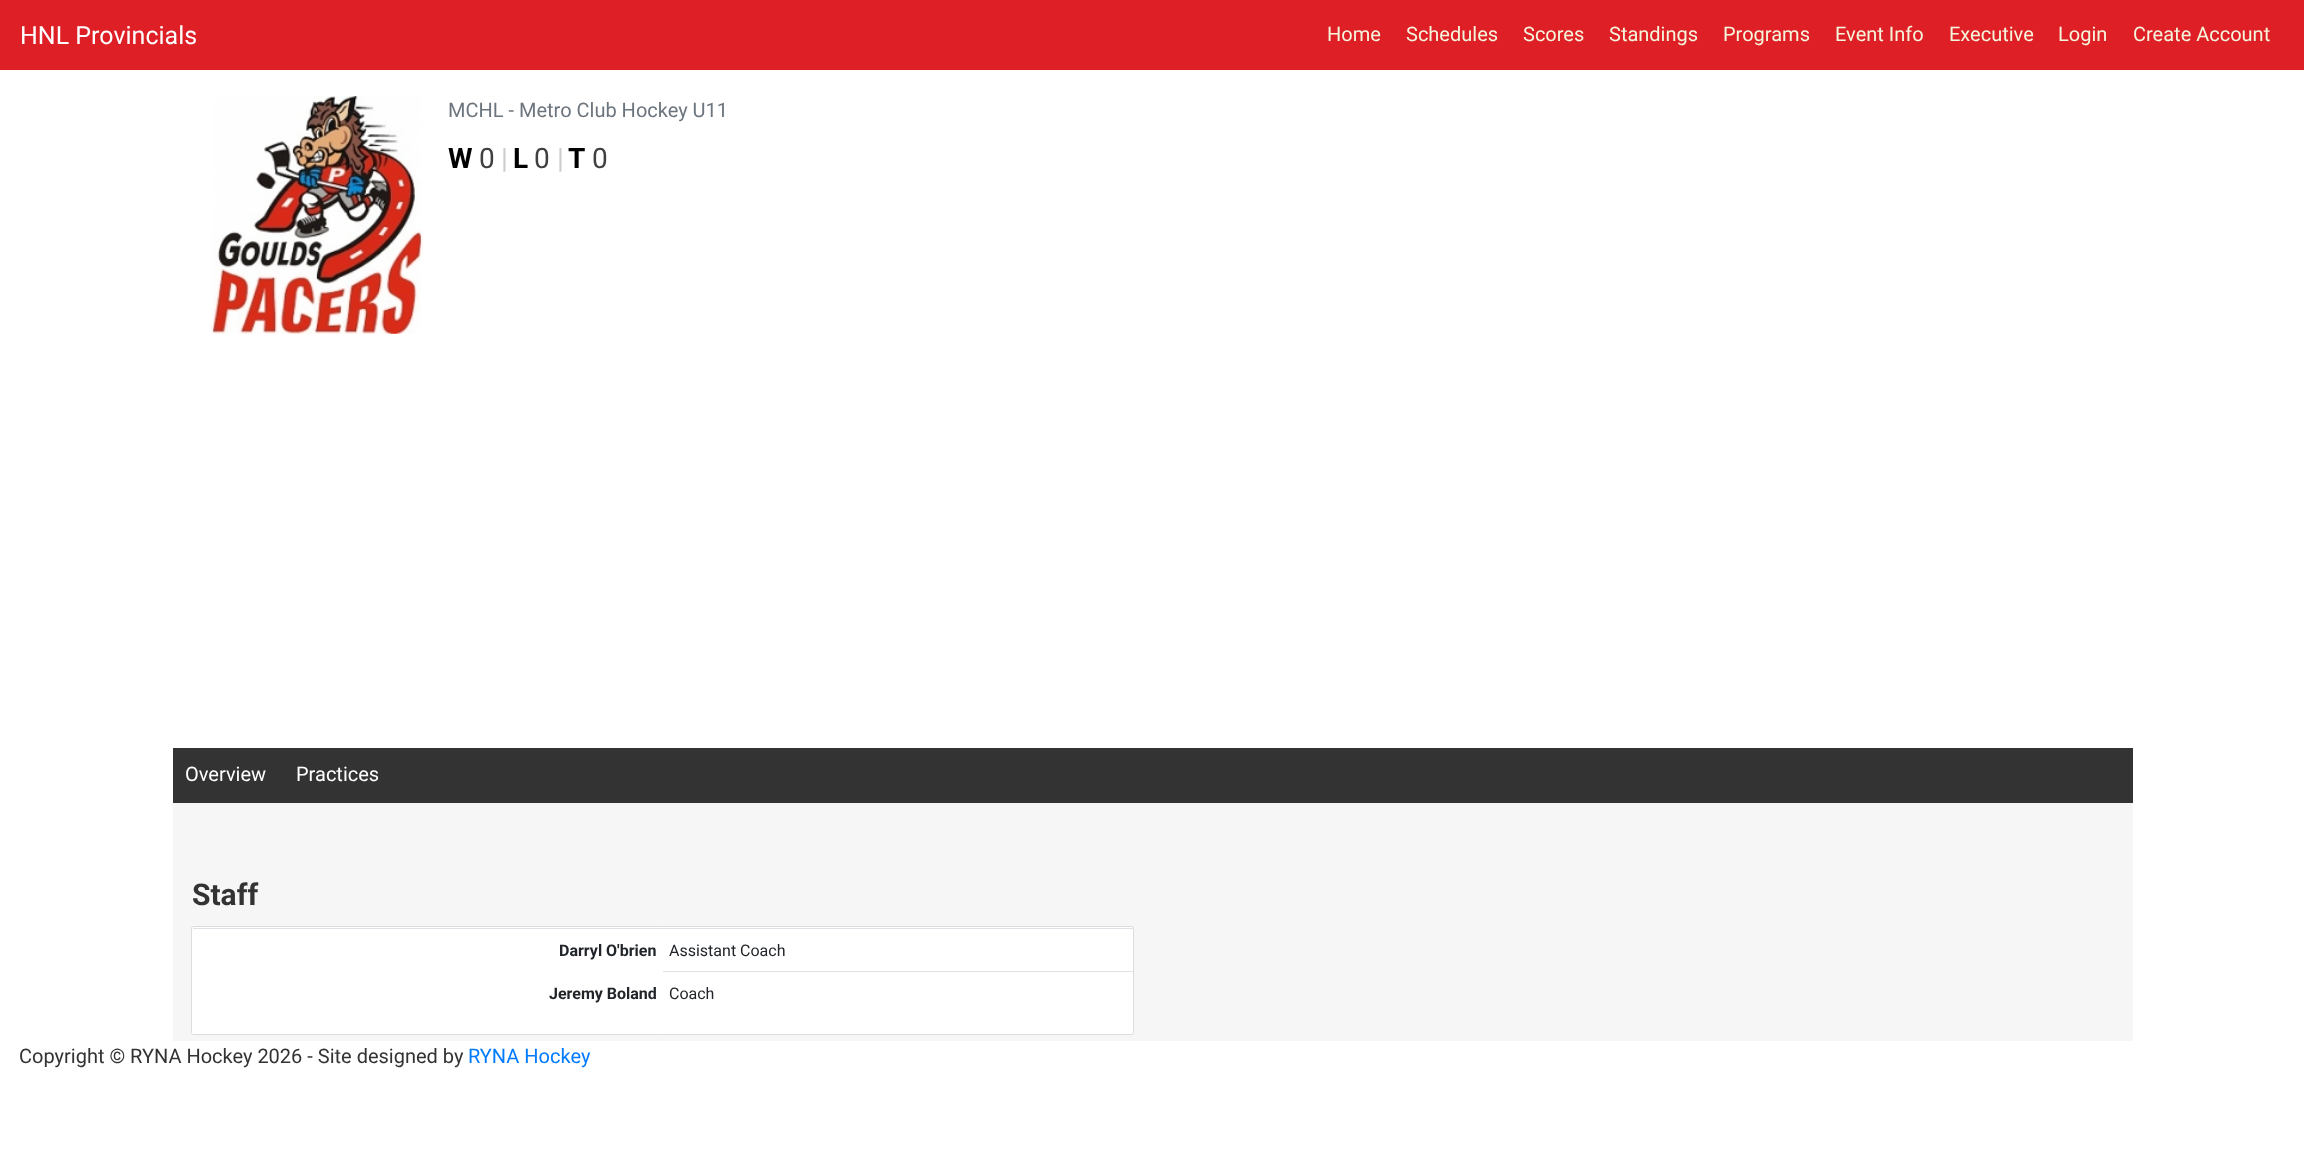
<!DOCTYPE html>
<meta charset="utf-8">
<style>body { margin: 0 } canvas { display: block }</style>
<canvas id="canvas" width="2304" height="1170"></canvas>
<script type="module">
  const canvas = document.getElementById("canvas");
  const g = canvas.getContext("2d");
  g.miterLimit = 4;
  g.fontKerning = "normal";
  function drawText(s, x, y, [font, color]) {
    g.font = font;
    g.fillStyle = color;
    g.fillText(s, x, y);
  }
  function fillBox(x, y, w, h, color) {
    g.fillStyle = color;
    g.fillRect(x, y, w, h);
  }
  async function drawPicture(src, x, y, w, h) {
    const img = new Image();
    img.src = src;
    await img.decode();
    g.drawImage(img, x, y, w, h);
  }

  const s1 = ["25px Roboto", "#FFFFFF"];
  const s2 = ["20px Roboto", "#F5F5DC"];
  const s3 = ["20px Roboto", "#6C757D"];
  const s4 = ["bold 28px Roboto", "#000000"];
  const s5 = ["28px Roboto", "#404040"];
  const s6 = ["28px Roboto", "#CCCCCC"];
  const s7 = ["20px Roboto", "#FFFFFF"];
  const s8 = ["bold 30px Roboto", "#333333"];
  const s9 = ["bold 16px Roboto", "#212529"];
  const s10 = ["16px Roboto", "#212529"];
  const s11 = ["20px Roboto", "#333333"];
  const s12 = ["20px Roboto", "#007BFF"];

  fillBox(0, 0, 2304, 1170, "#FFFFFF");
  fillBox(0, 0, 2304, 70, "#DE1F26");
  drawText("HNL Provincials", 20, 44, s1);
  drawText("Home", 1327, 41, s2);
  drawText("Schedules", 1406, 41, s2);
  drawText("Scores", 1523, 41, s2);
  drawText("Standings", 1609, 41, s2);
  drawText("Programs", 1723, 41, s2);
  drawText("Event Info", 1835, 41, s2);
  drawText("Executive", 1949, 41, s2);
  drawText("Login", 2058, 41, s2);
  drawText("Create Account", 2133, 41, s2);
  await drawPicture("pic1.png", 211, 96, 212, 238);
  drawText("MCHL - Metro Club Hockey U11", 448, 117, s3);
  drawText("W", 448, 168, s4);
  drawText("0", 479, 168, s5);
  drawText("|", 501, 168, s6);
  drawText("L", 513, 168, s4);
  drawText("0", 534, 168, s5);
  drawText("|", 557, 168, s6);
  drawText("T", 568, 168, s4);
  drawText("0", 592, 168, s5);
  fillBox(173, 748, 1960, 55, "#333333");
  drawText("Overview", 185, 781, s7);
  drawText("Practices", 296, 781, s7);
  fillBox(173, 803, 1960, 238, "#F6F6F6");
  drawText("Staff", 192, 905, s8);
  g.fillStyle = "#FFFFFF";
  g.beginPath();
  g.roundRect(191.5, 926.5, 942, 108, 2);
  g.fill();
  g.strokeStyle = "#DCDCDC";
  g.stroke();
  drawText("Darryl O'brien", 559, 956, s9);
  fillBox(193, 928, 940, 1, "#DEE2E6");
  drawText("Assistant Coach", 669, 956, s10);
  drawText("Jeremy Boland", 549, 999, s9);
  fillBox(663, 971, 470, 1, "#DEE2E6");
  drawText("Coach", 669, 999, s10);
  drawText("Copyright © RYNA Hockey 2026 - Site designed by", 19, 1063, s11);
  drawText("RYNA Hockey", 468, 1063, s12);
</script>
